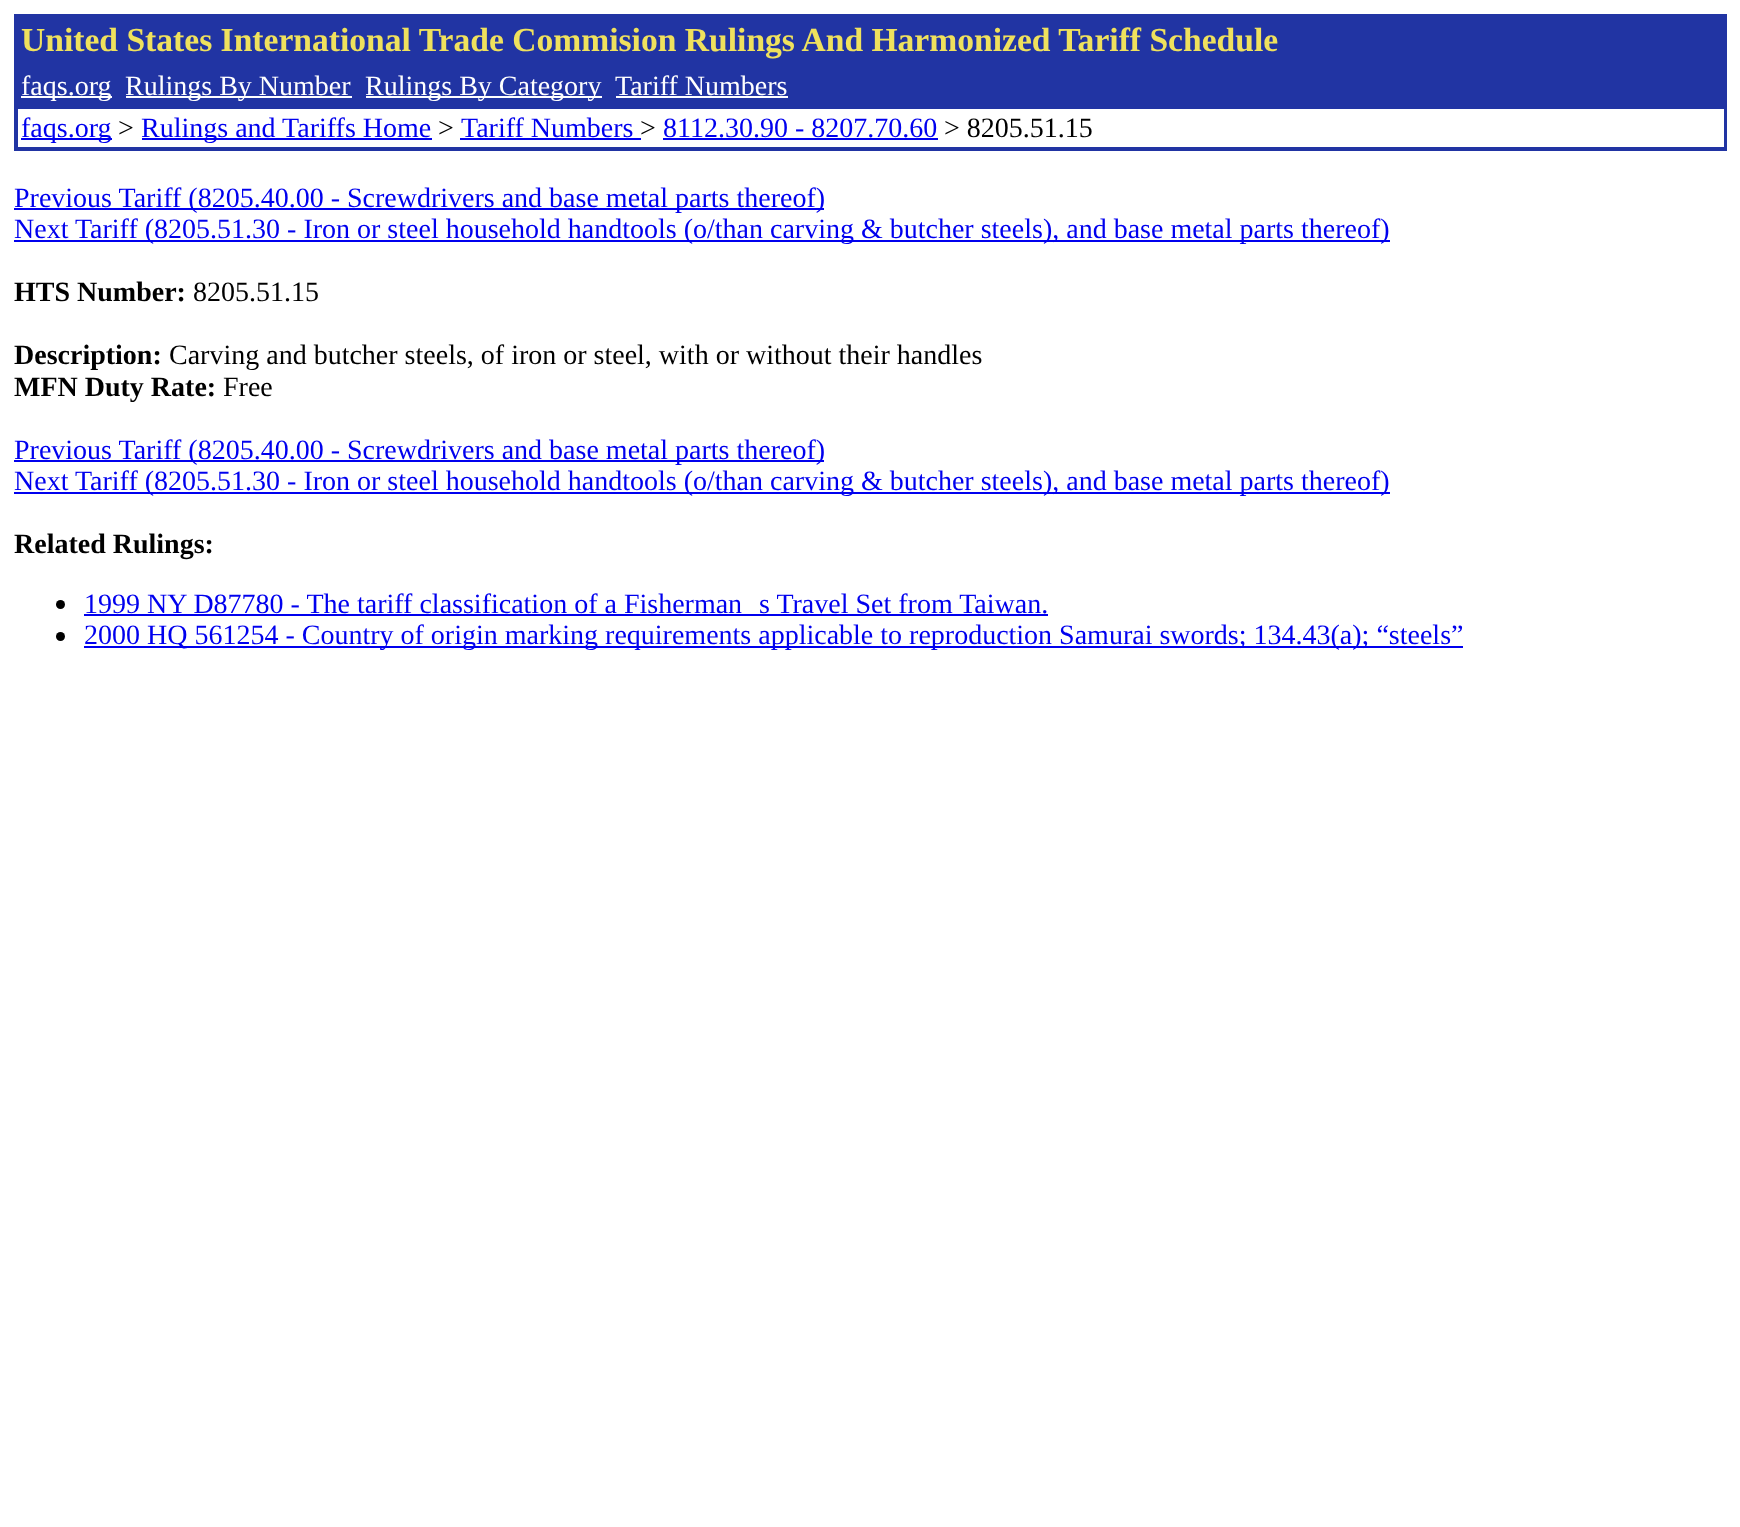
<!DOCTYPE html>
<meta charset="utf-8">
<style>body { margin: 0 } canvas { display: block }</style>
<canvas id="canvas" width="1740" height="1527"></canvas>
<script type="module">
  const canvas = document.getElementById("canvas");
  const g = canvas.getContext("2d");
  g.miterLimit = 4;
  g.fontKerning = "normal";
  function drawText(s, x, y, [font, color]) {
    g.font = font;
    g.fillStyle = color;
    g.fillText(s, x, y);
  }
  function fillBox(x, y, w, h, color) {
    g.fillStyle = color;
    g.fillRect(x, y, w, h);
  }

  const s1 = ["bold 33.6px Liberation Serif", "#EFE15D"];
  const s2 = ["28px Liberation Serif", "#FFFFFF"];
  const s3 = ["28px Liberation Serif", "#0000EE"];
  const s4 = ["28px Liberation Serif", "#000000"];
  const s5 = ["bold 28px Liberation Serif", "#000000"];

  fillBox(0, 0, 1740, 1527, "#FFFFFF");
  fillBox(14, 14, 1713, 137, "#2134A3");
  drawText("United States International Trade Commision Rulings And Harmonized Tariff Schedule", 21, 51, s1);
  fillBox(21, 96, 91, 2, "#FFFFFF");
  drawText("faqs.org", 21, 95, s2);
  fillBox(126, 96, 226, 2, "#FFFFFF");
  drawText("Rulings By Number", 125, 95, s2);
  fillBox(366, 96, 236, 2, "#FFFFFF");
  drawText("Rulings By Category", 365, 95, s2);
  drawText("Tariff Numbers", 615, 95, s2);
  fillBox(616, 96, 172, 2, "#FFFFFF");
  fillBox(18, 109, 1706, 38, "#FFFFFF");
  fillBox(21, 138, 91, 2, "#0000EE");
  drawText("faqs.org", 21, 137, s3);
  drawText(">", 118, 137, s4);
  fillBox(142, 138, 290, 2, "#0000EE");
  drawText("Rulings and Tariffs Home", 141, 137, s3);
  drawText(">", 438, 137, s4);
  drawText("Tariff Numbers", 461, 137, s3);
  fillBox(460, 138, 181, 2, "#0000EE");
  drawText(">", 640, 137, s4);
  drawText("8112.30.90 - 8207.70.60", 663, 137, s3);
  fillBox(663, 138, 275, 2, "#0000EE");
  drawText("> 8205.51.15", 944, 137, s4);
  fillBox(14, 208, 810, 2, "#0000EE");
  drawText("Previous Tariff (8205.40.00 - Screwdrivers and base metal parts thereof)", 14, 207, s3);
  fillBox(14, 240, 1376, 2, "#0000EE");
  drawText("Next Tariff (8205.51.30 - Iron or steel household handtools (o/than carving & butcher steels), and base metal parts thereof)", 14, 238, s3);
  drawText("HTS Number:", 14, 301, s5);
  drawText("8205.51.15", 193, 301, s4);
  drawText("Description:", 14, 364, s5);
  drawText("Carving and butcher steels, of iron or steel, with or without their handles", 169, 364, s4);
  drawText("MFN Duty Rate:", 14, 396, s5);
  drawText("Free", 223, 396, s4);
  fillBox(14, 460, 810, 2, "#0000EE");
  drawText("Previous Tariff (8205.40.00 - Screwdrivers and base metal parts thereof)", 14, 459, s3);
  fillBox(14, 492, 1376, 2, "#0000EE");
  drawText("Next Tariff (8205.51.30 - Iron or steel household handtools (o/than carving & butcher steels), and base metal parts thereof)", 14, 490, s3);
  drawText("Related Rulings:", 14, 553, s5);
  g.beginPath();
  g.arc(60.5, 604.5, 4.5, 0, Math.PI * 2);
  g.fill();
  drawText("1999 NY D87780 - The tariff classification of a Fisherman", 84, 613, s3);
  fillBox(84, 614, 964, 2, "#0000EE");
  drawText("s Travel Set from Taiwan.", 759, 613, s3);
  g.fillStyle = "#000000";
  g.beginPath();
  g.arc(60.5, 636.5, 4.5, 0, Math.PI * 2);
  g.fill();
  fillBox(84, 646, 1379, 2, "#0000EE");
  drawText("2000 HQ 561254 - Country of origin marking requirements applicable to reproduction Samurai swords; 134.43(a); “steels”", 84, 644, s3);
</script>
